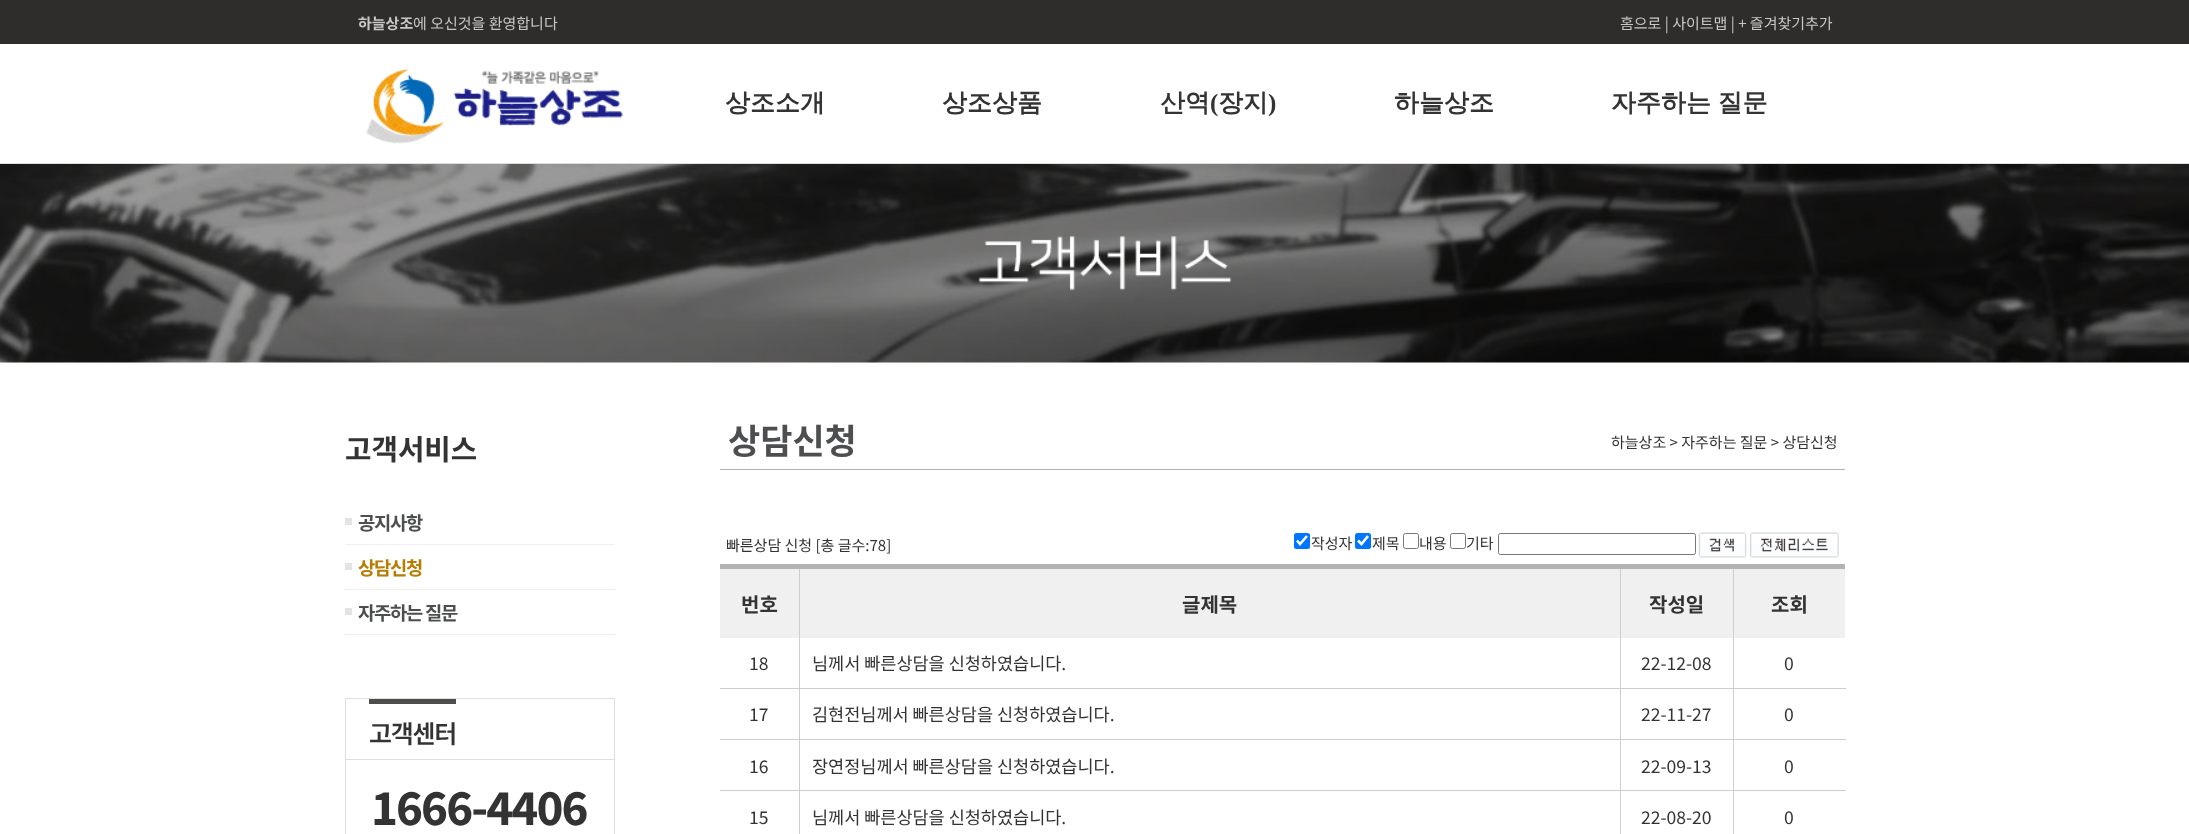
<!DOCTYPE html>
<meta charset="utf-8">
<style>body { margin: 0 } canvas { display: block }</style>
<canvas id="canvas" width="2189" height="834"></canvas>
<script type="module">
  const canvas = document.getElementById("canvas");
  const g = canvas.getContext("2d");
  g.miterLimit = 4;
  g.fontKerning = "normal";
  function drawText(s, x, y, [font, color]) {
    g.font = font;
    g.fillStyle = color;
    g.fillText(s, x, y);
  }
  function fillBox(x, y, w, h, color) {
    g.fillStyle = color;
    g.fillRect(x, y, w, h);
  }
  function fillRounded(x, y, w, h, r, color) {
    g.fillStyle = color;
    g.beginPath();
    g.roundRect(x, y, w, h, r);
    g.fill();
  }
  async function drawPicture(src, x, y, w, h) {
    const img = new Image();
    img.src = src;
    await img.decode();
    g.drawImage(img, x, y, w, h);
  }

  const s1 = ["bold 15px Noto Sans KR", "#C7C7C7"];
  const s2 = ["15px Noto Sans KR", "#C7C7C7"];
  const s3 = ["bold 25px WenQuanYi Zen Hei", "#333333"];
  const s4 = ["bold 25px Liberation Serif", "#333333"];
  const s5 = ["bold 28.75px Noto Sans KR", "#333333"];
  const s6 = ["bold 18.75px Noto Sans KR", "#4D4E4F"];
  const s7 = ["bold 18.75px Noto Sans KR", "#B77C03"];
  const s8 = ["600 25px Noto Sans KR", "#333333"];
  const s9 = ["800 45px Noto Sans KR", "#333333"];
  const s10 = ["bold 35px Noto Sans KR", "#4D4E4F"];
  const s11 = ["15px Noto Sans KR", "#333333"];
  const s12 = ["bold 20px Noto Sans KR", "#333333"];
  const s13 = ["17.5px Noto Sans KR", "#333333"];

  fillBox(0, 0, 2189, 834, "#FFFFFF");
  fillBox(0, 0, 2189, 44, "#2E2D2B");
  drawText("하늘상조", 358, 29, s1);
  drawText("에 오신것을 환영합니다", 413, 29, s2);
  drawText("홈으로 | 사이트맵 | + 즐겨찾기추가", 1620, 29, s2);
  await drawPicture("pic1.png", 366, 68, 257, 76);
  drawText("상조소개", 725, 111, s3);
  drawText("상조상품", 942, 111, s3);
  drawText("산역", 1160, 111, s3);
  drawText("(", 1210, 111, s4);
  drawText("장지", 1218, 111, s3);
  drawText(")", 1268, 111, s4);
  drawText("하늘상조", 1394, 111, s3);
  g.wordSpacing = "-1px";
  drawText("자주하는 질문", 1611, 111, s3);
  fillBox(0, 163, 2189, 1, "#DEDEDE");
  await drawPicture("pic2.png", 0, 164, 2189, 199);
  await drawPicture("pic3.png", 978, 236, 254, 55);
  g.wordSpacing = "0px";
  drawText("고객서비스", 345, 460, s5);
  fillBox(345, 544, 270, 1, "#EFEFEF");
  fillBox(345, 518, 7, 7, "#E3E3E3");
  g.letterSpacing = "-1.25px";
  drawText("공지사항", 358, 530, s6);
  fillBox(345, 589, 270, 1, "#EFEFEF");
  fillBox(345, 563, 7, 7, "#E3E3E3");
  drawText("상담신청", 358, 575, s7);
  fillBox(345, 634, 270, 1, "#EFEFEF");
  fillBox(345, 608, 7, 7, "#E3E3E3");
  drawText("자주하는 질문", 358, 620, s6);
  g.strokeStyle = "#DEDEDE";
  g.strokeRect(345.5, 698.5, 269, 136);
  fillBox(346, 759, 268, 1, "#DEDEDE");
  fillBox(369, 699, 87, 5, "#504E4B");
  drawText("고객센터", 369, 743, s8);
  g.letterSpacing = "-1.9px";
  drawText("1666-4406", 371, 825, s9);
  fillBox(720, 469, 1125, 1, "#AFAFB0");
  g.letterSpacing = "0px";
  drawText("상담신청", 728, 454, s10);
  drawText("하늘상조 > 자주하는 질문 > 상담신청", 1611, 448, s11);
  drawText("빠른상담 신청 [총 글수:78]", 726, 551, s11);
  fillRounded(1294, 533, 16, 16, 2.5, "#0075FF");
  g.beginPath();
  g.moveTo(1297, 540.5);
  g.lineTo(1300, 544);
  g.lineTo(1307, 536);
  g.strokeStyle = "#FFFFFF";
  g.lineWidth = 2.6;
  g.stroke();
  drawText("작성자", 1311, 549, s11);
  fillRounded(1355, 533, 16, 16, 2.5, "#0075FF");
  g.beginPath();
  g.moveTo(1358, 540.5);
  g.lineTo(1361.5, 544);
  g.lineTo(1368, 536);
  g.stroke();
  drawText("제목", 1372, 549, s11);
  g.beginPath();
  g.roundRect(1403.5, 533.5, 15, 15, 2);
  g.strokeStyle = "#767676";
  g.lineWidth = 1;
  g.stroke();
  drawText("내용", 1419, 549, s11);
  g.beginPath();
  g.roundRect(1450.5, 533.5, 15, 15, 2);
  g.stroke();
  drawText("기타", 1466, 549, s11);
  g.beginPath();
  g.roundRect(1498.5, 533.5, 197, 21, 2);
  g.stroke();
  await drawPicture("pic4.png", 1698, 532, 49, 26);
  await drawPicture("pic5.png", 1750, 532, 89, 26);
  fillBox(720, 564, 1125, 5, "#B3B3B3");
  fillBox(720, 569, 1125, 69, "#F0F0F0");
  drawText("번호", 741, 612, s12);
  drawText("글제목", 1182, 612, s12);
  drawText("작성일", 1649, 612, s12);
  drawText("조회", 1771, 612, s12);
  fillBox(1733, 790, 1, 44, "#CECECE");
  fillBox(1733, 790, 113, 1, "#CECECE");
  fillBox(1733, 739, 1, 52, "#CECECE");
  fillBox(1733, 739, 113, 1, "#CECECE");
  fillBox(1733, 688, 1, 52, "#CECECE");
  fillBox(1733, 688, 113, 1, "#CECECE");
  fillBox(1733, 569, 1, 120, "#CECECE");
  fillBox(1620, 790, 1, 44, "#CECECE");
  fillBox(1620, 790, 114, 1, "#CECECE");
  fillBox(1620, 739, 1, 52, "#CECECE");
  fillBox(1620, 739, 114, 1, "#CECECE");
  fillBox(1620, 688, 1, 52, "#CECECE");
  fillBox(1620, 688, 114, 1, "#CECECE");
  fillBox(1620, 569, 1, 120, "#CECECE");
  fillBox(799, 790, 1, 44, "#CECECE");
  fillBox(799, 790, 822, 1, "#CECECE");
  fillBox(799, 739, 1, 52, "#CECECE");
  fillBox(799, 739, 822, 1, "#CECECE");
  fillBox(799, 688, 1, 52, "#CECECE");
  fillBox(799, 688, 822, 1, "#CECECE");
  fillBox(799, 569, 1, 120, "#CECECE");
  fillBox(720, 688, 80, 1, "#CECECE");
  drawText("18", 749, 670, s13);
  drawText("님께서 빠른상담을 신청하였습니다.", 812, 670, s13);
  drawText("22-12-08", 1641, 670, s13);
  drawText("0", 1784, 670, s13);
  fillBox(720, 739, 80, 1, "#CECECE");
  drawText("17", 749, 721, s13);
  drawText("김현전님께서 빠른상담을 신청하였습니다.", 812, 721, s13);
  drawText("22-11-27", 1641, 721, s13);
  drawText("0", 1784, 721, s13);
  fillBox(720, 790, 80, 1, "#CECECE");
  drawText("16", 749, 773, s13);
  drawText("장연정님께서 빠른상담을 신청하였습니다.", 812, 773, s13);
  drawText("22-09-13", 1641, 773, s13);
  drawText("0", 1784, 773, s13);
  drawText("15", 749, 824, s13);
  drawText("님께서 빠른상담을 신청하였습니다.", 812, 824, s13);
  drawText("22-08-20", 1641, 824, s13);
  drawText("0", 1784, 824, s13);
</script>
